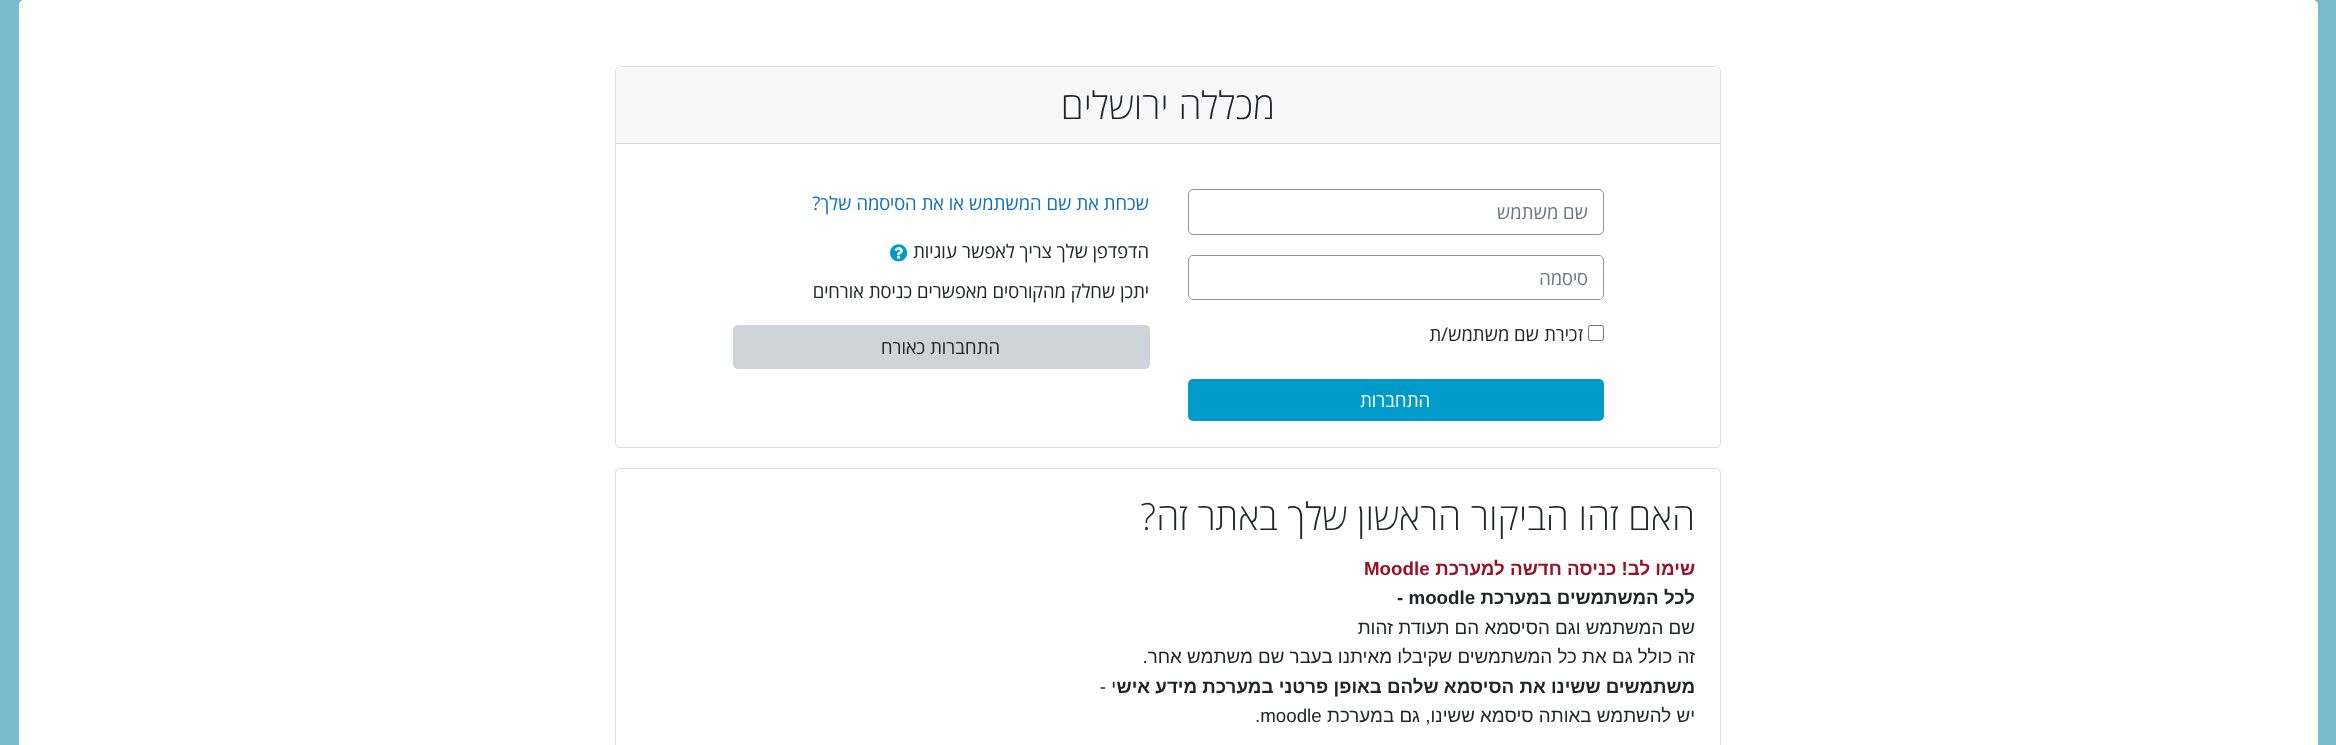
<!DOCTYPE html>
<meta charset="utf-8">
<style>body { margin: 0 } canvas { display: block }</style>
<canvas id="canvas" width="2336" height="745"></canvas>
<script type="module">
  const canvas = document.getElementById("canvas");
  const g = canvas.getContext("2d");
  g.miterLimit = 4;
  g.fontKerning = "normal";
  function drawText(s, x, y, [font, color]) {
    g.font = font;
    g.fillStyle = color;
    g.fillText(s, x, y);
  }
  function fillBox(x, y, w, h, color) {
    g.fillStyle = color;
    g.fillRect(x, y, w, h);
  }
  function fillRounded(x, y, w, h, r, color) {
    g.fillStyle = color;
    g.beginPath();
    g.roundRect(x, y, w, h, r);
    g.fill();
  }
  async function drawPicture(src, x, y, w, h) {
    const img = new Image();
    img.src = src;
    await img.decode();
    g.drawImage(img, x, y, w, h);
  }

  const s1 = ["300 37.5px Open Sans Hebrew", "#212529"];
  const s2 = ["18.75px Open Sans Hebrew", "#6C757D"];
  const s3 = ["18.75px Open Sans Hebrew", "#212529"];
  const s4 = ["18.75px Open Sans Hebrew", "#FFFFFF"];
  const s5 = ["18.75px Open Sans Hebrew", "#0F6FC5"];
  const s6 = ["bold 18.75px Liberation Sans", "#9C1027"];
  const s7 = ["bold 18.75px Liberation Sans", "#212529"];
  const s8 = ["18.75px Liberation Sans", "#212529"];

  fillBox(0, 0, 2336, 745, "#7ABBCE");
  fillRounded(19, 0, 2299, 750, 5, "#FFFFFF");
  g.beginPath();
  g.roundRect(615.5, 66.5, 1105, 381, 4.5);
  g.strokeStyle = "#DFDFDF";
  g.stroke();
  g.fillStyle = "#F8F8F8";
  g.beginPath();
  g.roundRect(616, 68, 1104, 76, [4, 4, 0, 0]);
  g.fill();
  fillBox(616, 143, 1104, 1, "#D9D9D9");
  g.direction = "rtl";
  drawText("מכללה ירושלים", 1275, 119, s1);
  g.beginPath();
  g.roundRect(1188.5, 189.5, 415, 45, 4.5);
  g.strokeStyle = "#8F959E";
  g.stroke();
  drawText("שם משתמש", 1588, 219, s2);
  g.beginPath();
  g.roundRect(1188.5, 255.5, 415, 44, 4.5);
  g.stroke();
  drawText("סיסמה", 1588, 285, s2);
  g.beginPath();
  g.roundRect(1588.5, 325.5, 15, 15, 2);
  g.strokeStyle = "#767676";
  g.stroke();
  drawText("זכירת שם משתמש/ת", 1583, 341, s3);
  fillRounded(1188, 379, 416, 42, 5, "#009BC9");
  drawText("התחברות", 1430, 407, s4);
  drawText("שכחת את שם המשתמש או את הסיסמה שלך?", 1149, 210, s5);
  drawText("הדפדפן שלך צריך לאפשר עוגיות", 1149, 258, s3);
  await drawPicture("pic1.png", 890, 244, 18, 18);
  drawText("יתכן שחלק מהקורסים מאפשרים כניסת אורחים", 1149, 298, s3);
  fillRounded(733, 325, 417, 44, 5, "#CED4DA");
  drawText("התחברות כאורח", 1000, 354, s3);
  g.beginPath();
  g.roundRect(615.5, 468.5, 1105, 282, 4.5);
  g.strokeStyle = "#DFDFDF";
  g.stroke();
  drawText("האם זהו הביקור הראשון שלך באתר זה?", 1695, 530, s1);
  drawText("שימו לב! כניסה חדשה למערכת", 1695, 575, s6);
  g.direction = "ltr";
  drawText("Moodle", 1364, 575, s6);
  g.direction = "rtl";
  drawText("לכל המשתמשים במערכת", 1695, 604, s7);
  g.direction = "ltr";
  drawText("- moodle", 1397, 604, s7);
  g.direction = "rtl";
  drawText("שם המשתמש וגם הסיסמא הם תעודת זהות", 1695, 634, s8);
  drawText("זה כולל גם את כל המשתמשים שקיבלו מאיתנו בעבר שם משתמש אחר.", 1695, 663, s8);
  drawText("משתמשים ששינו את הסיסמא שלהם באופן פרטני במערכת מידע איש", 1695, 693, s7);
  drawText("י -", 1116, 693, s8);
  drawText("יש להשתמש באותה סיסמא ששינו, גם במערכת", 1695, 722, s8);
  g.direction = "ltr";
  drawText(".moodle", 1255, 722, s8);
</script>
